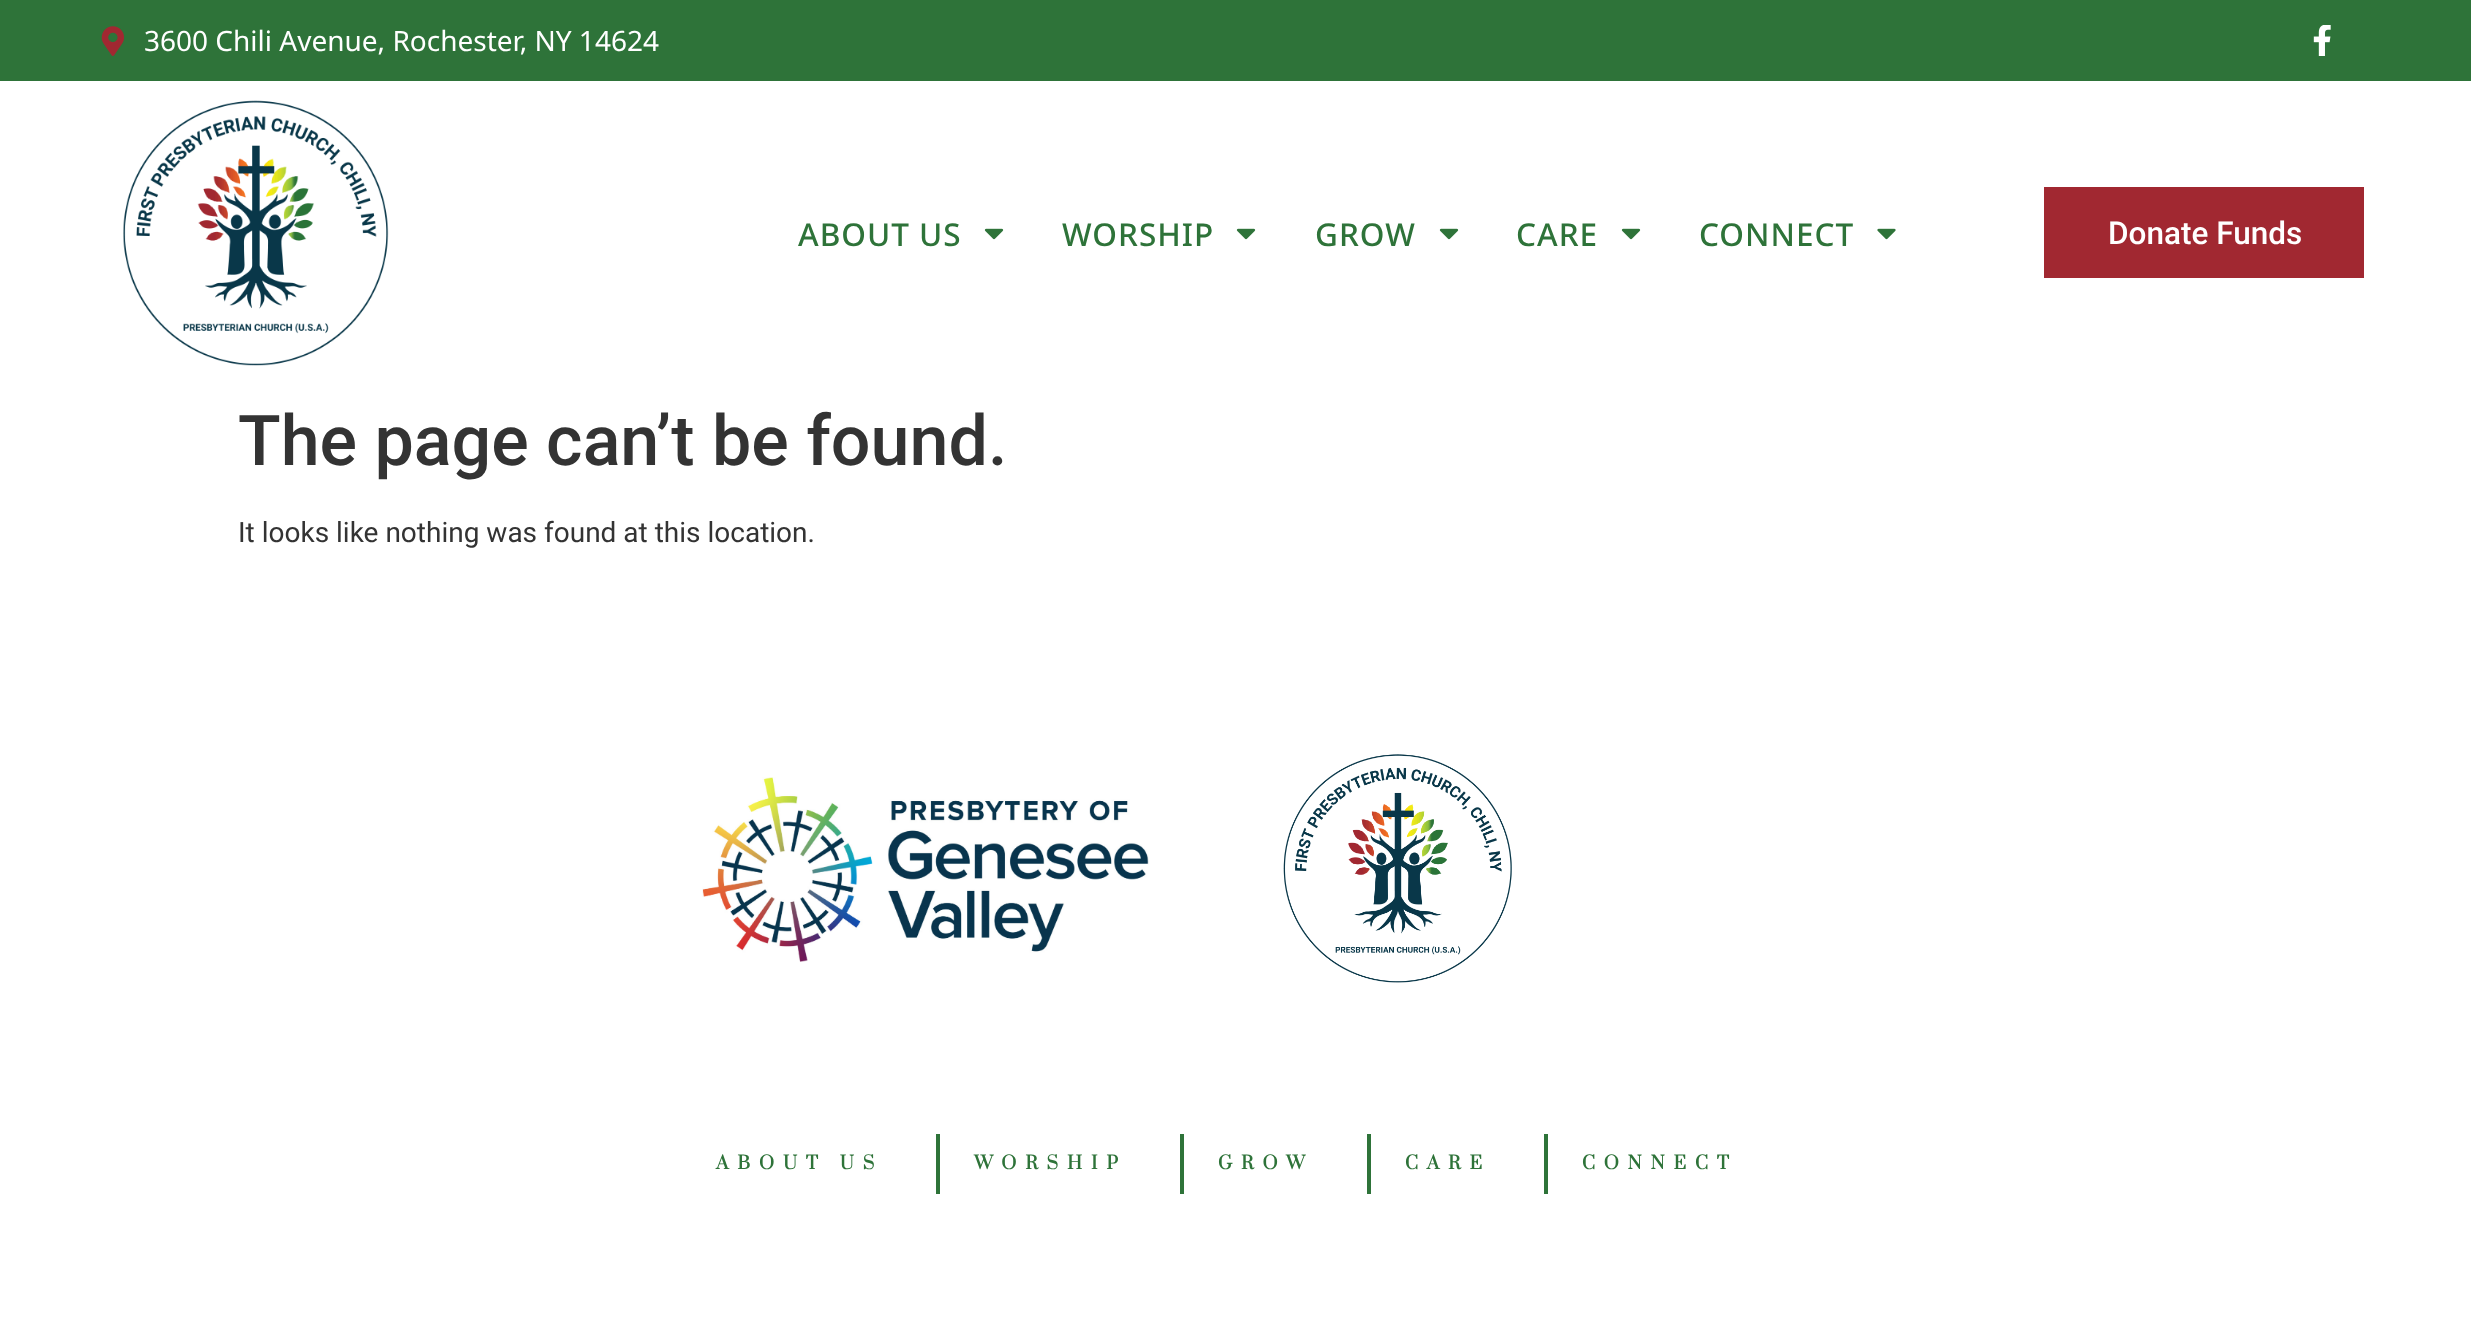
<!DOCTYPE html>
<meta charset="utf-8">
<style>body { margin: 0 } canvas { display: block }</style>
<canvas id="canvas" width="2471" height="1317"></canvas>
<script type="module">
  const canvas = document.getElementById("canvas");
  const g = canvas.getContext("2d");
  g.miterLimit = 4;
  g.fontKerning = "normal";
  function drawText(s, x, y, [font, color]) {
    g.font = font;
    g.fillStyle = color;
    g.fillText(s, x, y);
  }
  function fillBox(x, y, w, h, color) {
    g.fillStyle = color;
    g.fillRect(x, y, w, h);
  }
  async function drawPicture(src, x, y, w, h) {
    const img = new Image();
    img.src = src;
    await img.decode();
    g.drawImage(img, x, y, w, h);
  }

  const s1 = ["28px Noto Sans", "#FFFFFF"];
  const s2 = ["500 31.5px Noto Sans", "#2E7339"];
  const s3 = ["500 31.5px Roboto", "#FFFFFF"];
  const s4 = ["500 70px Roboto", "#333333"];
  const s5 = ["28px Roboto", "#333333"];
  const s6 = ["bold 17.5px Prata", "#2E7339"];

  fillBox(0, 0, 2471, 1317, "#FFFFFF");
  fillBox(0, 0, 2471, 81, "#2E7339");
  await drawPicture("pic1.png", 101, 26, 23, 30);
  drawText("3600 Chili Avenue, Rochester, NY 14624", 144, 51, s1);
  await drawPicture("pic2.png", 2313, 25, 18, 31);
  await drawPicture("pic3.png", 123, 100, 266, 266);
  g.letterSpacing = "1px";
  drawText("ABOUT US", 798, 246, s2);
  await drawPicture("pic4.png", 984, 228, 20, 12);
  drawText("WORSHIP", 1062, 246, s2);
  await drawPicture("pic4.png", 1236, 228, 20, 12);
  drawText("GROW", 1315, 246, s2);
  await drawPicture("pic4.png", 1439, 228, 20, 12);
  drawText("CARE", 1516, 246, s2);
  await drawPicture("pic4.png", 1621, 228, 20, 12);
  drawText("CONNECT", 1699, 246, s2);
  await drawPicture("pic5.png", 1877, 228, 19, 12);
  fillBox(2044, 187, 320, 91, "#A12831");
  g.letterSpacing = "0px";
  drawText("Donate Funds", 2108, 244, s3);
  drawText("The page can’t be found.", 238, 465, s4);
  drawText("It looks like nothing was found at this location.", 238, 542, s5);
  await drawPicture("pic6.png", 702, 777, 447, 185);
  await drawPicture("pic7.png", 1283, 754, 229, 229);
  g.letterSpacing = "8.75px";
  drawText("ABOUT US", 716, 1169, s6);
  fillBox(936, 1134, 4, 60, "#2E7339");
  drawText("WORSHIP", 974, 1169, s6);
  fillBox(1180, 1134, 4, 60, "#2E7339");
  drawText("GROW", 1218, 1169, s6);
  fillBox(1367, 1134, 4, 60, "#2E7339");
  drawText("CARE", 1405, 1169, s6);
  fillBox(1544, 1134, 4, 60, "#2E7339");
  drawText("CONNECT", 1582, 1169, s6);
</script>
